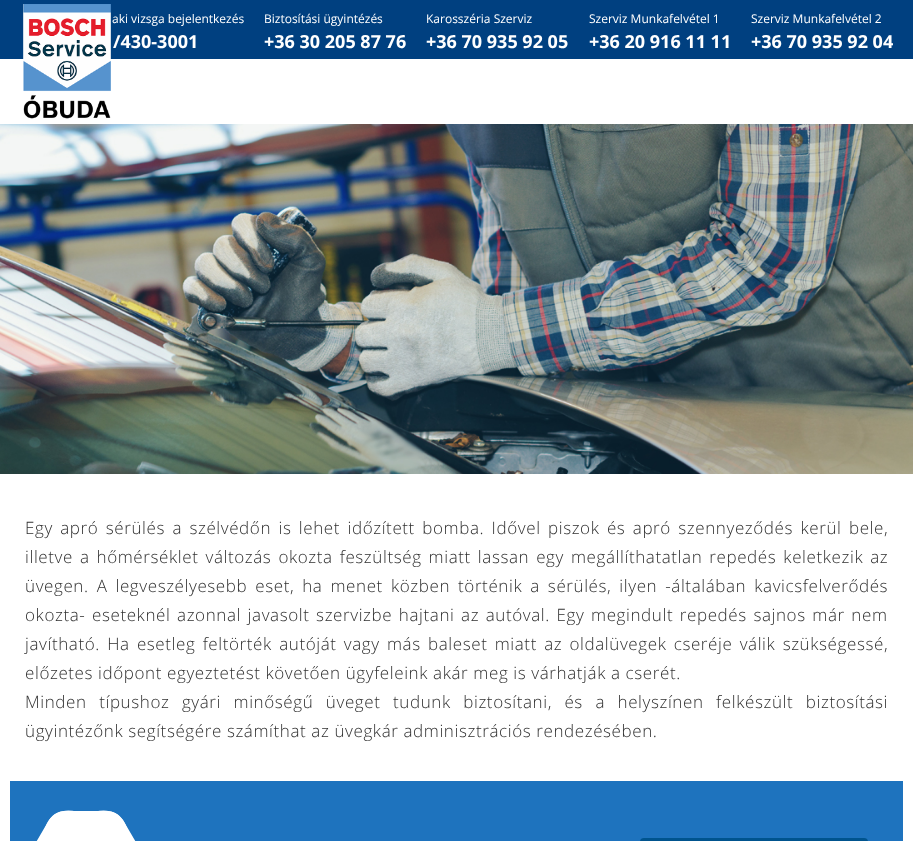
<!DOCTYPE html>
<meta charset="utf-8">
<style>body { margin: 0 } canvas { display: block }</style>
<canvas id="canvas" width="913" height="841"></canvas>
<script type="module">
  const canvas = document.getElementById("canvas");
  const g = canvas.getContext("2d");
  g.miterLimit = 4;
  g.fontKerning = "normal";
  function drawText(s, x, y, [font, color]) {
    g.font = font;
    g.fillStyle = color;
    g.fillText(s, x, y);
  }
  function fillBox(x, y, w, h, color) {
    g.fillStyle = color;
    g.fillRect(x, y, w, h);
  }
  function fillRounded(x, y, w, h, r, color) {
    g.fillStyle = color;
    g.beginPath();
    g.roundRect(x, y, w, h, r);
    g.fill();
  }
  async function drawPicture(src, x, y, w, h) {
    const img = new Image();
    img.src = src;
    await img.decode();
    g.drawImage(img, x, y, w, h);
  }

  const s1 = ["12px Open Sans", "#FFFFFF"];
  const s2 = ["bold 18px Open Sans", "#FFFFFF"];
  const s3 = ["300 17px Open Sans", "#313131"];

  fillBox(0, 0, 913, 841, "#FFFFFF");
  fillBox(0, 0, 913, 59, "#004080");
  await drawPicture("pic1.png", 23, 4, 88, 115);
  drawText("aki vizsga bejelentkezés", 112, 23, s1);
  drawText("/430-3001", 113, 48, s2);
  drawText("Biztosítási ügyintézés", 264, 23, s1);
  drawText("+36 30 205 87 76", 264, 48, s2);
  drawText("Karosszéria Szerviz", 426, 23, s1);
  drawText("+36 70 935 92 05", 426, 48, s2);
  drawText("Szerviz Munkafelvétel 1", 589, 23, s1);
  drawText("+36 20 916 11 11", 589, 48, s2);
  drawText("Szerviz Munkafelvétel 2", 751, 23, s1);
  drawText("+36 70 935 92 04", 751, 48, s2);
  await drawPicture("pic2.png", 0, 124, 913, 350);
  g.letterSpacing = "0.6px";
  g.wordSpacing = "2.4px";
  drawText("Egy apró sérülés a szélvédőn is lehet időzített bomba. Idővel piszok és apró szennyeződés kerül bele,", 25, 534, s3);
  g.wordSpacing = "2px";
  drawText("illetve a hőmérséklet változás okozta feszültség miatt lassan egy megállíthatatlan repedés keletkezik az", 25, 563, s3);
  g.wordSpacing = "3px";
  drawText("üvegen. A legveszélyesebb eset, ha menet közben történik a sérülés, ilyen -általában kavicsfelverődés", 25, 592, s3);
  g.wordSpacing = "1.6px";
  drawText("okozta- eseteknél azonnal javasolt szervizbe hajtani az autóval. Egy megindult repedés sajnos már nem", 25, 621, s3);
  g.wordSpacing = "2.25px";
  drawText("javítható. Ha esetleg feltörték autóját vagy más baleset miatt az oldalüvegek cseréje válik szükségessé,", 25, 650, s3);
  g.wordSpacing = "0px";
  drawText("előzetes időpont egyeztetést követően ügyfeleink akár meg is várhatják a cserét.", 25, 679, s3);
  g.wordSpacing = "7.5px";
  drawText("Minden típushoz gyári minőségű üveget tudunk biztosítani, és a helyszínen felkészült biztosítási", 25, 708, s3);
  g.wordSpacing = "0px";
  drawText("ügyintézőnk segítségére számíthat az üvegkár adminisztrációs rendezésében.", 25, 737, s3);
  fillBox(10, 781, 893, 60, "#1E73BE");
  g.fillStyle = "#FFFFFF";
  g.beginPath();
  g.moveTo(123, 820);
  g.lineTo(144, 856);
  g.bezierCurveTo(150, 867, 144, 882, 130, 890);
  g.lineTo(85, 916);
  g.bezierCurveTo(71, 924, 55, 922, 49, 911);
  g.lineTo(28, 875);
  g.bezierCurveTo(22, 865, 28, 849, 42, 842);
  g.lineTo(87, 815);
  g.bezierCurveTo(101, 807, 117, 810, 123, 820);
  g.closePath();
  g.fill();
  g.beginPath();
  g.moveTo(144, 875);
  g.lineTo(123, 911);
  g.bezierCurveTo(117, 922, 101, 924, 87, 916);
  g.lineTo(42, 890);
  g.bezierCurveTo(28, 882, 22, 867, 28, 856);
  g.lineTo(49, 820);
  g.bezierCurveTo(55, 810, 71, 807, 85, 815);
  g.lineTo(130, 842);
  g.bezierCurveTo(144, 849, 150, 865, 144, 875);
  g.closePath();
  g.fill();
  g.beginPath();
  g.moveTo(65, 811);
  g.lineTo(107, 811);
  g.bezierCurveTo(119, 811, 129, 824, 129, 840);
  g.lineTo(129, 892);
  g.bezierCurveTo(129, 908, 119, 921, 107, 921);
  g.lineTo(65, 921);
  g.bezierCurveTo(53, 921, 43, 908, 43, 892);
  g.lineTo(43, 840);
  g.bezierCurveTo(43, 824, 53, 811, 65, 811);
  g.closePath();
  g.fill();
  fillRounded(640, 838, 228, 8, 5, "#00548E");
</script>
